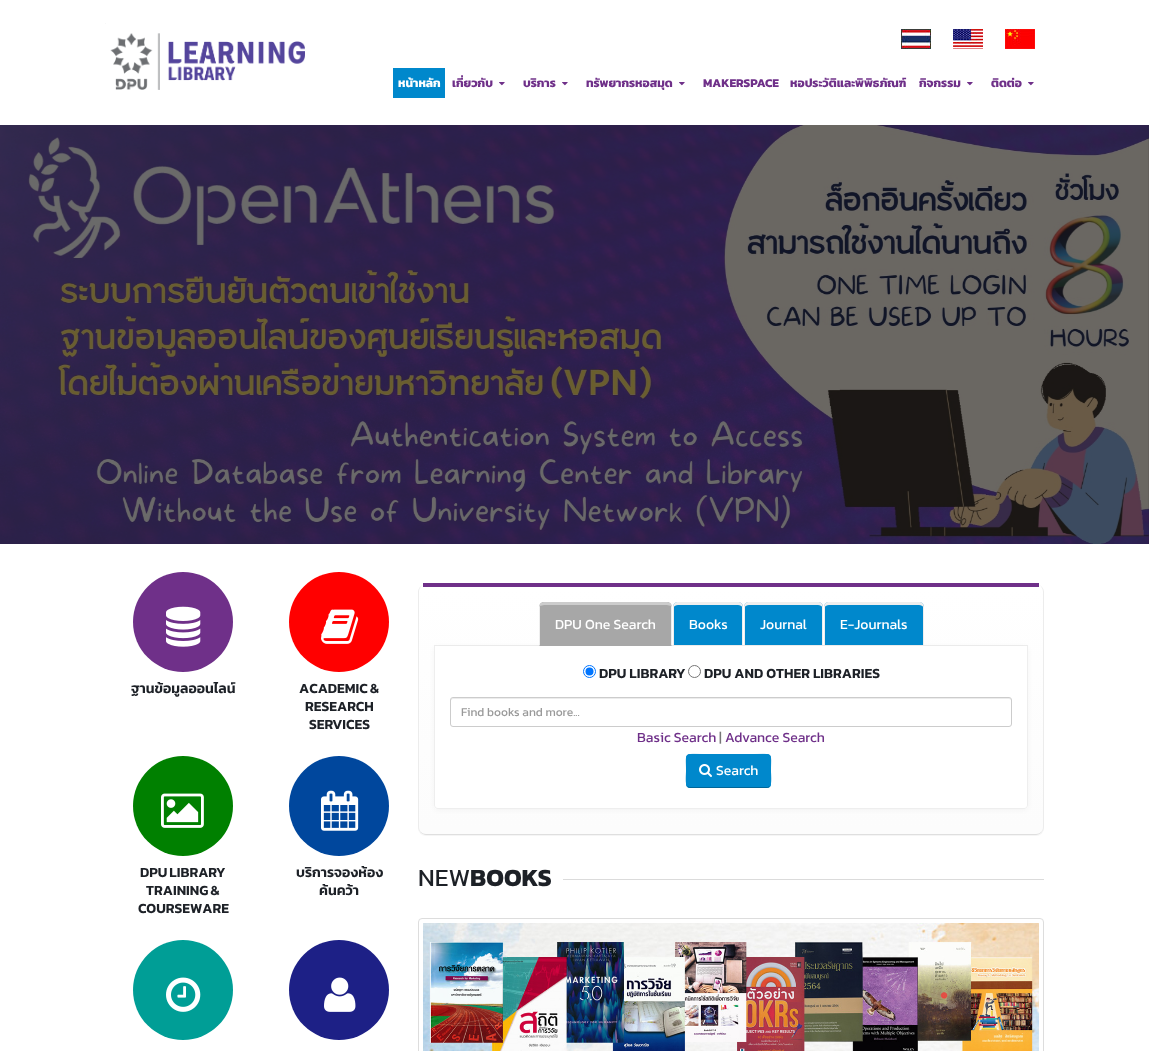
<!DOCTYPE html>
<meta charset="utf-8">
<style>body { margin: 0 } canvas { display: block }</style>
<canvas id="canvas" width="1149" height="1051"></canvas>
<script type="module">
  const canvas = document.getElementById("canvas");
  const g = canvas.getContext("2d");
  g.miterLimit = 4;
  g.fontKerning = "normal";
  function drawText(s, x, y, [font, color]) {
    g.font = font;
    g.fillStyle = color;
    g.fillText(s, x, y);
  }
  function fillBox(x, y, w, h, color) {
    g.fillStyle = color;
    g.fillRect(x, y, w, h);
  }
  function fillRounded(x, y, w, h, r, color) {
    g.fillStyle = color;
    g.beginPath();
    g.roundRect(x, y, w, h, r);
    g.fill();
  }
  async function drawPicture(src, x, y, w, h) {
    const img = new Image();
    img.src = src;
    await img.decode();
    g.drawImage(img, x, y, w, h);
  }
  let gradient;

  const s1 = ["bold 12px Kanit", "#FFFFFF"];
  const s2 = ["bold 12px Kanit", "#6F3089"];
  const s3 = ["600 14px Kanit", "#1D2127"];
  const s4 = ["14px Kanit", "#FFFFFF"];
  const s5 = ["12px Kanit", "#999999"];
  const s6 = ["14px Kanit", "#6F3089"];
  const s7 = ["14px Kanit", "#777777"];
  const s8 = ["25px Kanit", "#1D2127"];
  const s9 = ["bold 25px Kanit", "#1D2127"];

  fillBox(0, 0, 1149, 1051, "#FFFFFF");
  await drawPicture("pic1.png", 105, 23, 200, 67);
  await drawPicture("pic2.png", 901, 29, 30, 20);
  await drawPicture("pic3.png", 953, 29, 30, 20);
  await drawPicture("pic4.png", 1005, 29, 30, 20);
  fillBox(393, 68, 52, 30, "#0088CC");
  drawText("หน้าหลัก", 398, 87, s1);
  drawText("เกี่ยวกับ", 452, 87, s2);
  await drawPicture("pic5.png", 499, 82, 6, 4);
  drawText("บริการ", 523, 87, s2);
  await drawPicture("pic5.png", 562, 82, 6, 4);
  drawText("ทรัพยากรหอสมุด", 586, 87, s2);
  await drawPicture("pic5.png", 679, 82, 6, 4);
  drawText("MAKERSPACE", 703, 87, s2);
  drawText("หอประวัติและพิพิธภัณฑ์", 790, 87, s2);
  drawText("กิจกรรม", 919, 87, s2);
  await drawPicture("pic5.png", 967, 82, 6, 4);
  drawText("ติดต่อ", 991, 87, s2);
  await drawPicture("pic5.png", 1028, 82, 6, 4);
  fillBox(0, 125, 1149, 419, "#171717");
  await drawPicture("pic6.png", 0, 125, 1149, 419);
  g.fillStyle = "#6F3089";
  g.beginPath();
  g.arc(183, 622, 50, 0, Math.PI * 2);
  g.fill();
  await drawPicture("pic7.png", 166, 606, 35, 41);
  drawText("ฐานข้อมูลออนไลน์", 131, 693, s3);
  g.fillStyle = "#FF0000";
  g.beginPath();
  g.arc(339, 622, 50, 0, Math.PI * 2);
  g.fill();
  await drawPicture("pic8.png", 321, 609, 38, 35);
  g.wordSpacing = "-1px";
  drawText("ACADEMIC &", 299, 693, s3);
  g.wordSpacing = "0px";
  drawText("RESEARCH", 305, 711, s3);
  drawText("SERVICES", 309, 729, s3);
  g.fillStyle = "#008000";
  g.beginPath();
  g.arc(183, 806, 50, 0, Math.PI * 2);
  g.fill();
  await drawPicture("pic9.png", 161, 793, 43, 35);
  g.wordSpacing = "-1px";
  drawText("DPU LIBRARY", 140, 877, s3);
  drawText("TRAINING &", 146, 895, s3);
  g.wordSpacing = "0px";
  drawText("COURSEWARE", 138, 913, s3);
  g.fillStyle = "#00479D";
  g.beginPath();
  g.arc(339, 806, 50, 0, Math.PI * 2);
  g.fill();
  await drawPicture("pic10.png", 321, 790, 38, 41);
  drawText("บริการจองห้อง", 296, 877, s3);
  drawText("ค้นคว้า", 319, 895, s3);
  g.fillStyle = "#009E96";
  g.beginPath();
  g.arc(183, 990, 50, 0, Math.PI * 2);
  g.fill();
  await drawPicture("pic11.png", 166, 977, 35, 35);
  g.fillStyle = "#1D2086";
  g.beginPath();
  g.arc(339, 990, 50, 0, Math.PI * 2);
  g.fill();
  await drawPicture("pic12.png", 324, 977, 32, 35);
  g.fillStyle = "rgba(0, 0, 0, 0.04)";
  g.filter = "blur(0.5px)";
  g.beginPath();
  g.roundRect(418, 585, 626, 251, 8);
  g.fill();
  g.filter = "none";
  g.save();
  g.beginPath();
  g.roundRect(418, 584, 626, 251, 8);
  g.clip();
  gradient = g.createLinearGradient(731, 584, 731, 834);
  gradient.addColorStop(0.01, "#FFFFFF");
  gradient.addColorStop(0.98, "#FCFCFC");
  g.fillStyle = gradient;
  g.beginPath();
  g.roundRect(418, 584, 626, 250, [8, 8, 0, 0]);
  g.fill();
  gradient = g.createLinearGradient(731, 834, 731, 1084);
  gradient.addColorStop(0.01, "#FFFFFF");
  gradient.addColorStop(0.98, "#FCFCFC");
  g.fillStyle = gradient;
  g.fillRect(418, 834, 626, 1);
  g.restore();
  g.fillStyle = "#ECECEC";
  g.beginPath();
  g.moveTo(1044, 592);
  g.bezierCurveTo(1044, 588, 1040, 584, 1036, 584);
  g.bezierCurveTo(1040, 584, 1043, 588, 1043, 592);
  g.lineTo(1043, 827);
  g.bezierCurveTo(1043, 829, 1042, 831, 1041, 832);
  g.lineTo(1042, 832);
  g.bezierCurveTo(1043, 831, 1044, 829, 1044, 827);
  g.closePath();
  g.fill();
  g.fillStyle = "#DFDFDF";
  g.beginPath();
  g.moveTo(426, 835);
  g.lineTo(1036, 835);
  g.bezierCurveTo(1038, 835, 1040, 834, 1042, 832);
  g.lineTo(1041, 832);
  g.bezierCurveTo(1040, 833, 1038, 834, 1036, 834);
  g.lineTo(426, 834);
  g.bezierCurveTo(424, 834, 422, 833, 421, 832);
  g.lineTo(420, 832);
  g.bezierCurveTo(422, 834, 424, 835, 426, 835);
  g.closePath();
  g.fill();
  g.fillStyle = "#ECECEC";
  g.beginPath();
  g.moveTo(418, 592);
  g.lineTo(418, 827);
  g.bezierCurveTo(418, 829, 419, 831, 420, 832);
  g.lineTo(421, 832);
  g.bezierCurveTo(420, 831, 419, 829, 419, 827);
  g.lineTo(419, 592);
  g.bezierCurveTo(419, 588, 422, 584, 426, 584);
  g.bezierCurveTo(422, 584, 418, 588, 418, 592);
  g.closePath();
  g.fill();
  fillBox(423, 583, 616, 4, "#6F3089");
  fillBox(434, 645, 594, 1, "#EEEEEE");
  g.fillStyle = "rgba(0, 0, 0, 0.04)";
  g.filter = "blur(2.5px)";
  g.beginPath();
  g.roundRect(434, 647, 594, 163, 4);
  g.fill();
  g.filter = "none";
  g.fillStyle = "#A7A7A7";
  g.beginPath();
  g.roundRect(539, 602, 133, 44, [5, 5, 0, 0]);
  g.fill();
  g.fillStyle = "#CCCCCC";
  g.beginPath();
  g.moveTo(544, 602);
  g.bezierCurveTo(542, 602, 541, 603, 540, 604);
  g.lineTo(540, 606);
  g.bezierCurveTo(541, 606, 543, 605, 544, 605);
  g.lineTo(667, 605);
  g.bezierCurveTo(668, 605, 670, 606, 671, 606);
  g.lineTo(671, 604);
  g.bezierCurveTo(670, 603, 669, 602, 667, 602);
  g.closePath();
  g.fill();
  g.fillStyle = "#EEEEEE";
  g.beginPath();
  g.moveTo(672, 646);
  g.lineTo(672, 607);
  g.lineTo(671, 604);
  g.lineTo(671, 606);
  g.bezierCurveTo(671, 607, 671, 641, 671, 645);
  g.closePath();
  g.fill();
  g.beginPath();
  g.moveTo(539, 646);
  g.lineTo(540, 645);
  g.bezierCurveTo(540, 641, 540, 607, 540, 606);
  g.lineTo(540, 604);
  g.lineTo(539, 607);
  g.closePath();
  g.fill();
  drawText("DPU One Search", 555, 629, s4);
  g.fillStyle = "#0088CC";
  g.beginPath();
  g.roundRect(673, 602, 70, 43, [5, 5, 0, 0]);
  g.fill();
  g.fillStyle = "#EEEEEE";
  g.beginPath();
  g.moveTo(678, 602);
  g.lineTo(738, 602);
  g.bezierCurveTo(741, 602, 743, 604, 743, 607);
  g.lineTo(743, 645);
  g.lineTo(673, 645);
  g.lineTo(673, 607);
  g.bezierCurveTo(673, 604, 675, 602, 678, 602);
  g.closePath();
  g.moveTo(678, 605);
  g.lineTo(738, 605);
  g.bezierCurveTo(740, 605, 742, 606, 742, 607);
  g.lineTo(742, 645);
  g.lineTo(674, 645);
  g.lineTo(674, 607);
  g.bezierCurveTo(674, 606, 676, 605, 678, 605);
  g.closePath();
  g.fill("evenodd");
  drawText("Books", 689, 629, s4);
  g.fillStyle = "#0088CC";
  g.beginPath();
  g.roundRect(744, 602, 79, 43, [5, 5, 0, 0]);
  g.fill();
  g.fillStyle = "#EEEEEE";
  g.beginPath();
  g.moveTo(749, 602);
  g.lineTo(818, 602);
  g.bezierCurveTo(821, 602, 823, 604, 823, 607);
  g.lineTo(823, 645);
  g.lineTo(744, 645);
  g.lineTo(744, 607);
  g.bezierCurveTo(744, 604, 746, 602, 749, 602);
  g.closePath();
  g.moveTo(749, 605);
  g.lineTo(818, 605);
  g.bezierCurveTo(820, 605, 822, 606, 822, 607);
  g.lineTo(822, 645);
  g.lineTo(745, 645);
  g.lineTo(745, 607);
  g.bezierCurveTo(745, 606, 747, 605, 749, 605);
  g.closePath();
  g.fill("evenodd");
  drawText("Journal", 760, 629, s4);
  g.fillStyle = "#0088CC";
  g.beginPath();
  g.roundRect(824, 602, 100, 43, [5, 5, 0, 0]);
  g.fill();
  g.fillStyle = "#EEEEEE";
  g.beginPath();
  g.moveTo(829, 602);
  g.lineTo(919, 602);
  g.bezierCurveTo(922, 602, 924, 604, 924, 607);
  g.lineTo(924, 645);
  g.lineTo(824, 645);
  g.lineTo(824, 607);
  g.bezierCurveTo(824, 604, 826, 602, 829, 602);
  g.closePath();
  g.moveTo(829, 605);
  g.lineTo(919, 605);
  g.bezierCurveTo(921, 605, 923, 606, 923, 607);
  g.lineTo(923, 645);
  g.lineTo(825, 645);
  g.lineTo(825, 607);
  g.bezierCurveTo(825, 606, 827, 605, 829, 605);
  g.closePath();
  g.fill("evenodd");
  drawText("E-Journals", 840, 629, s4);
  g.beginPath();
  g.roundRect(434, 646, 594, 163, [0, 0, 4, 4]);
  g.fill();
  g.fillStyle = "#EEEEEE";
  g.beginPath();
  g.moveTo(434, 646);
  g.lineTo(1028, 646);
  g.lineTo(1028, 805);
  g.bezierCurveTo(1028, 807, 1026, 809, 1024, 809);
  g.lineTo(438, 809);
  g.bezierCurveTo(436, 809, 434, 807, 434, 805);
  g.closePath();
  g.moveTo(435, 646);
  g.lineTo(1027, 646);
  g.lineTo(1027, 805);
  g.bezierCurveTo(1027, 807, 1026, 808, 1024, 808);
  g.lineTo(438, 808);
  g.bezierCurveTo(436, 808, 435, 807, 435, 805);
  g.closePath();
  g.fill("evenodd");
  g.beginPath();
  g.arc(589.5, 671.5, 6, 0, Math.PI * 2);
  g.strokeStyle = "#0075FF";
  g.stroke();
  g.fillStyle = "#0075FF";
  g.beginPath();
  g.arc(589.5, 671.5, 4, 0, Math.PI * 2);
  g.fill();
  drawText("DPU LIBRARY", 599, 678, s3);
  g.beginPath();
  g.arc(694.5, 671.5, 6, 0, Math.PI * 2);
  g.strokeStyle = "#767676";
  g.stroke();
  drawText("DPU AND OTHER LIBRARIES", 704, 678, s3);
  g.fillStyle = "#ECECEC";
  g.beginPath();
  g.moveTo(453, 699);
  g.lineTo(1009, 699);
  g.bezierCurveTo(1010, 699, 1011, 700, 1011, 701);
  g.bezierCurveTo(1011, 700, 1011, 698, 1009, 698);
  g.lineTo(453, 698);
  g.lineTo(451, 699);
  g.lineTo(451, 701);
  g.bezierCurveTo(451, 700, 452, 699, 453, 699);
  g.closePath();
  g.fill();
  g.beginPath();
  g.roundRect(450.5, 697.5, 561, 29, 2.5);
  g.strokeStyle = "#CCCCCC";
  g.stroke();
  drawText("Find books and more...", 461, 716, s5);
  drawText("Basic Search", 637, 742, s6);
  drawText("|", 719, 742, s7);
  drawText("Advance Search", 725, 742, s6);
  fillRounded(686, 754, 85, 34, 4, "#0088CC");
  g.beginPath();
  g.moveTo(769.5, 786.5);
  g.lineTo(767.5, 787.5);
  g.lineTo(689.5, 787.5);
  g.lineTo(687.5, 786.5);
  g.strokeStyle = "#006699";
  g.stroke();
  g.beginPath();
  g.moveTo(687.5, 786.5);
  g.bezierCurveTo(685.5, 784, 686.5, 774, 686.5, 771);
  g.bezierCurveTo(686.5, 752, 683.5, 754.5, 703, 754.5);
  g.lineTo(754, 754.5);
  g.bezierCurveTo(773.5, 754.5, 770.5, 752, 770.5, 771);
  g.bezierCurveTo(770.5, 774, 771.5, 784, 769.5, 786.5);
  g.strokeStyle = "#0088CC";
  g.stroke();
  await drawPicture("pic13.png", 699, 764, 13, 13);
  drawText("Search", 716, 775, s4);
  drawText("NEW", 418, 886, s8);
  drawText("BOOKS", 470, 886, s9);
  fillBox(563, 879, 481, 1, "#DBDBDB");
  g.beginPath();
  g.roundRect(418.5, 918.5, 625, 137, 3.5);
  g.strokeStyle = "#DDDDDD";
  g.stroke();
  await drawPicture("pic14.png", 423, 923, 616, 128);
</script>
